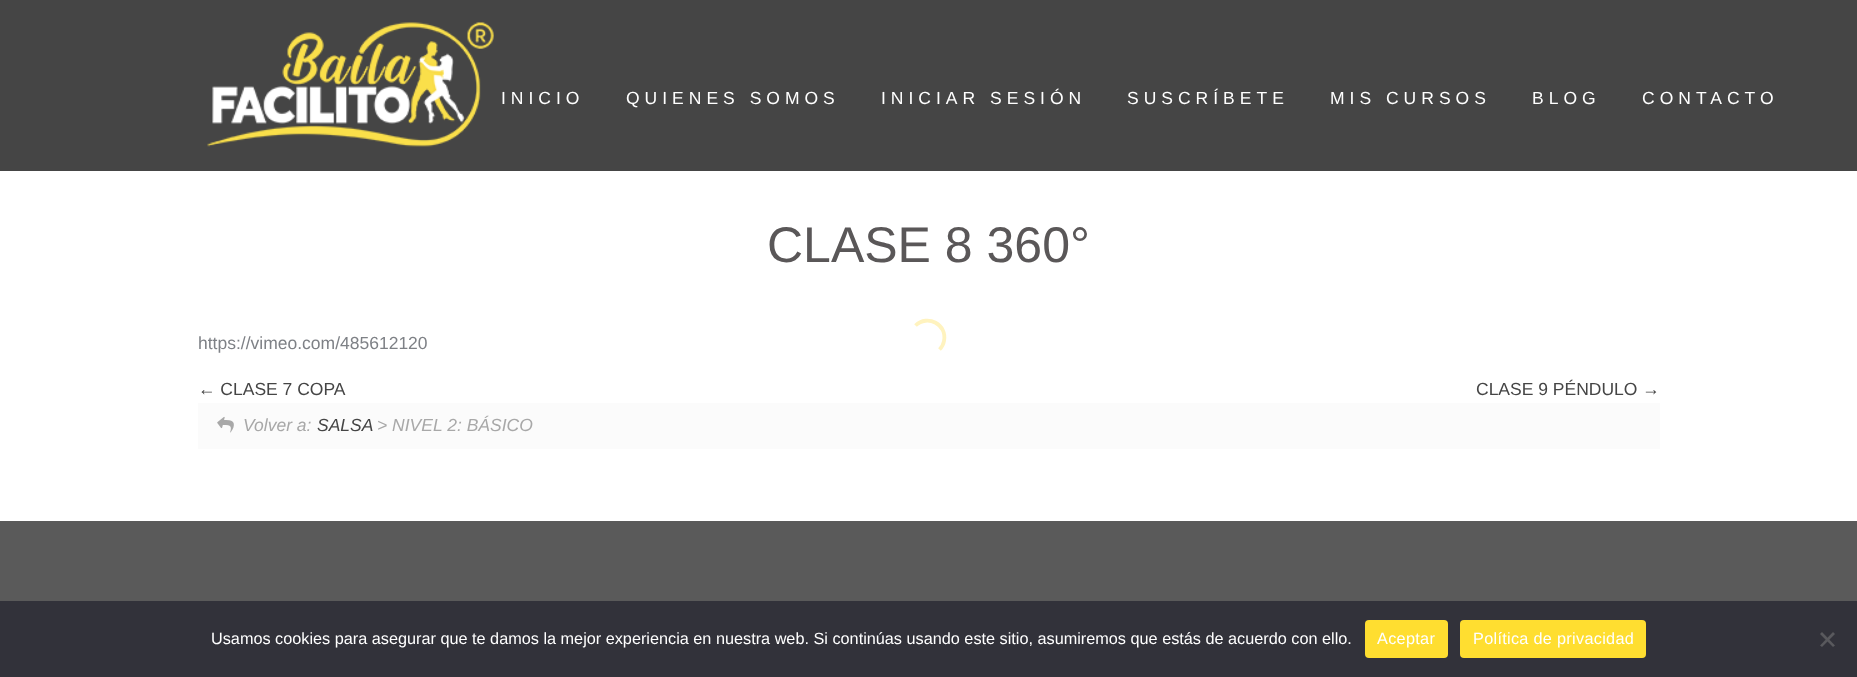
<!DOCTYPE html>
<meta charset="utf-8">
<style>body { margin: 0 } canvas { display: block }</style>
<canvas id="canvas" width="1857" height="677"></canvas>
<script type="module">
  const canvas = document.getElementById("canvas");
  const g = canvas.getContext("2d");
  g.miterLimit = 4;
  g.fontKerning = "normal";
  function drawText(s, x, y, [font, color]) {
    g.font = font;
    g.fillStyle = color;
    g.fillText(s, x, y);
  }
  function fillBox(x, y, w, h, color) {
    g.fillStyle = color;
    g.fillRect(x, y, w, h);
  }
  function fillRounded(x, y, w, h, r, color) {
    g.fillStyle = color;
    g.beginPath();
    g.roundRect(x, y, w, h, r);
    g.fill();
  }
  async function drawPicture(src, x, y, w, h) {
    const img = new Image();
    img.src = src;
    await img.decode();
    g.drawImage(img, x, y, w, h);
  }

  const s1 = ["17.5px Liberation Sans", "#FFFFFF"];
  const s2 = ["50px Liberation Sans", "#5A5758"];
  const s3 = ["17.5px Liberation Sans", "#7E8186"];
  const s4 = ["17.5px Liberation Sans", "#454545"];
  const s5 = ["italic 17.5px Liberation Sans", "#A8A8A8"];
  const s6 = ["italic 17.5px Liberation Sans", "#454545"];
  const s7 = ["16.25px Liberation Sans", "#FFFFFF"];

  fillBox(0, 0, 1857, 677, "#FFFFFF");
  fillBox(0, 0, 1857, 171, "#454545");
  await drawPicture("pic1.png", 207, 22, 287, 125);
  g.letterSpacing = "5px";
  drawText("INICIO", 501, 104, s1);
  drawText("QUIENES SOMOS", 626, 104, s1);
  drawText("INICIAR SESIÓN", 881, 104, s1);
  drawText("SUSCRÍBETE", 1127, 104, s1);
  drawText("MIS CURSOS", 1330, 104, s1);
  drawText("BLOG", 1532, 104, s1);
  drawText("CONTACTO", 1642, 104, s1);
  g.letterSpacing = "0px";
  drawText("CLASE 8 360°", 767, 262, s2);
  drawText("https://vimeo.com/485612120", 198, 349, s3);
  drawText("← CLASE 7 COPA", 198, 395, s4);
  drawText("CLASE 9 PÉNDULO →", 1476, 395, s4);
  fillBox(198, 403, 1462, 46, "#FBFBFB");
  await drawPicture("pic2.png", 217, 416, 17, 17);
  drawText("Volver a:", 243, 431, s5);
  drawText("SALSA", 317, 431, s6);
  drawText("> NIVEL 2: BÁSICO", 377, 431, s5);
  fillBox(0, 521, 1857, 80, "#5A5A5A");
  g.beginPath();
  g.moveTo(915.5, 325.5);
  g.bezierCurveTo(927.5, 314, 947.5, 324.5, 944, 341);
  g.bezierCurveTo(943.5, 344, 942, 347, 939.5, 349.5);
  g.strokeStyle = "#FFF3BF";
  g.lineWidth = 3.8;
  g.stroke();
  fillBox(0, 601, 1857, 76, "#32323A");
  drawText("Usamos cookies para asegurar que te damos la mejor experiencia en nuestra web. Si continúas usando este sitio, asumiremos que estás de acuerdo con ello.", 211, 644, s7);
  fillRounded(1365, 620, 83, 38, 4, "#FFDE30");
  g.letterSpacing = "0.3px";
  drawText("Aceptar", 1377, 644, s7);
  fillRounded(1460, 620, 186, 38, 4, "#FFDE30");
  drawText("Política de privacidad", 1473, 644, s7);
  g.fillStyle = "#59595D";
  g.beginPath();
  g.moveTo(1833, 632);
  g.lineTo(1835, 634);
  g.lineTo(1822, 647);
  g.lineTo(1820, 645.5);
  g.closePath();
  g.fill();
  g.beginPath();
  g.moveTo(1820, 634);
  g.lineTo(1822, 632);
  g.lineTo(1835, 645.5);
  g.lineTo(1833, 647);
  g.closePath();
  g.fill();
</script>
